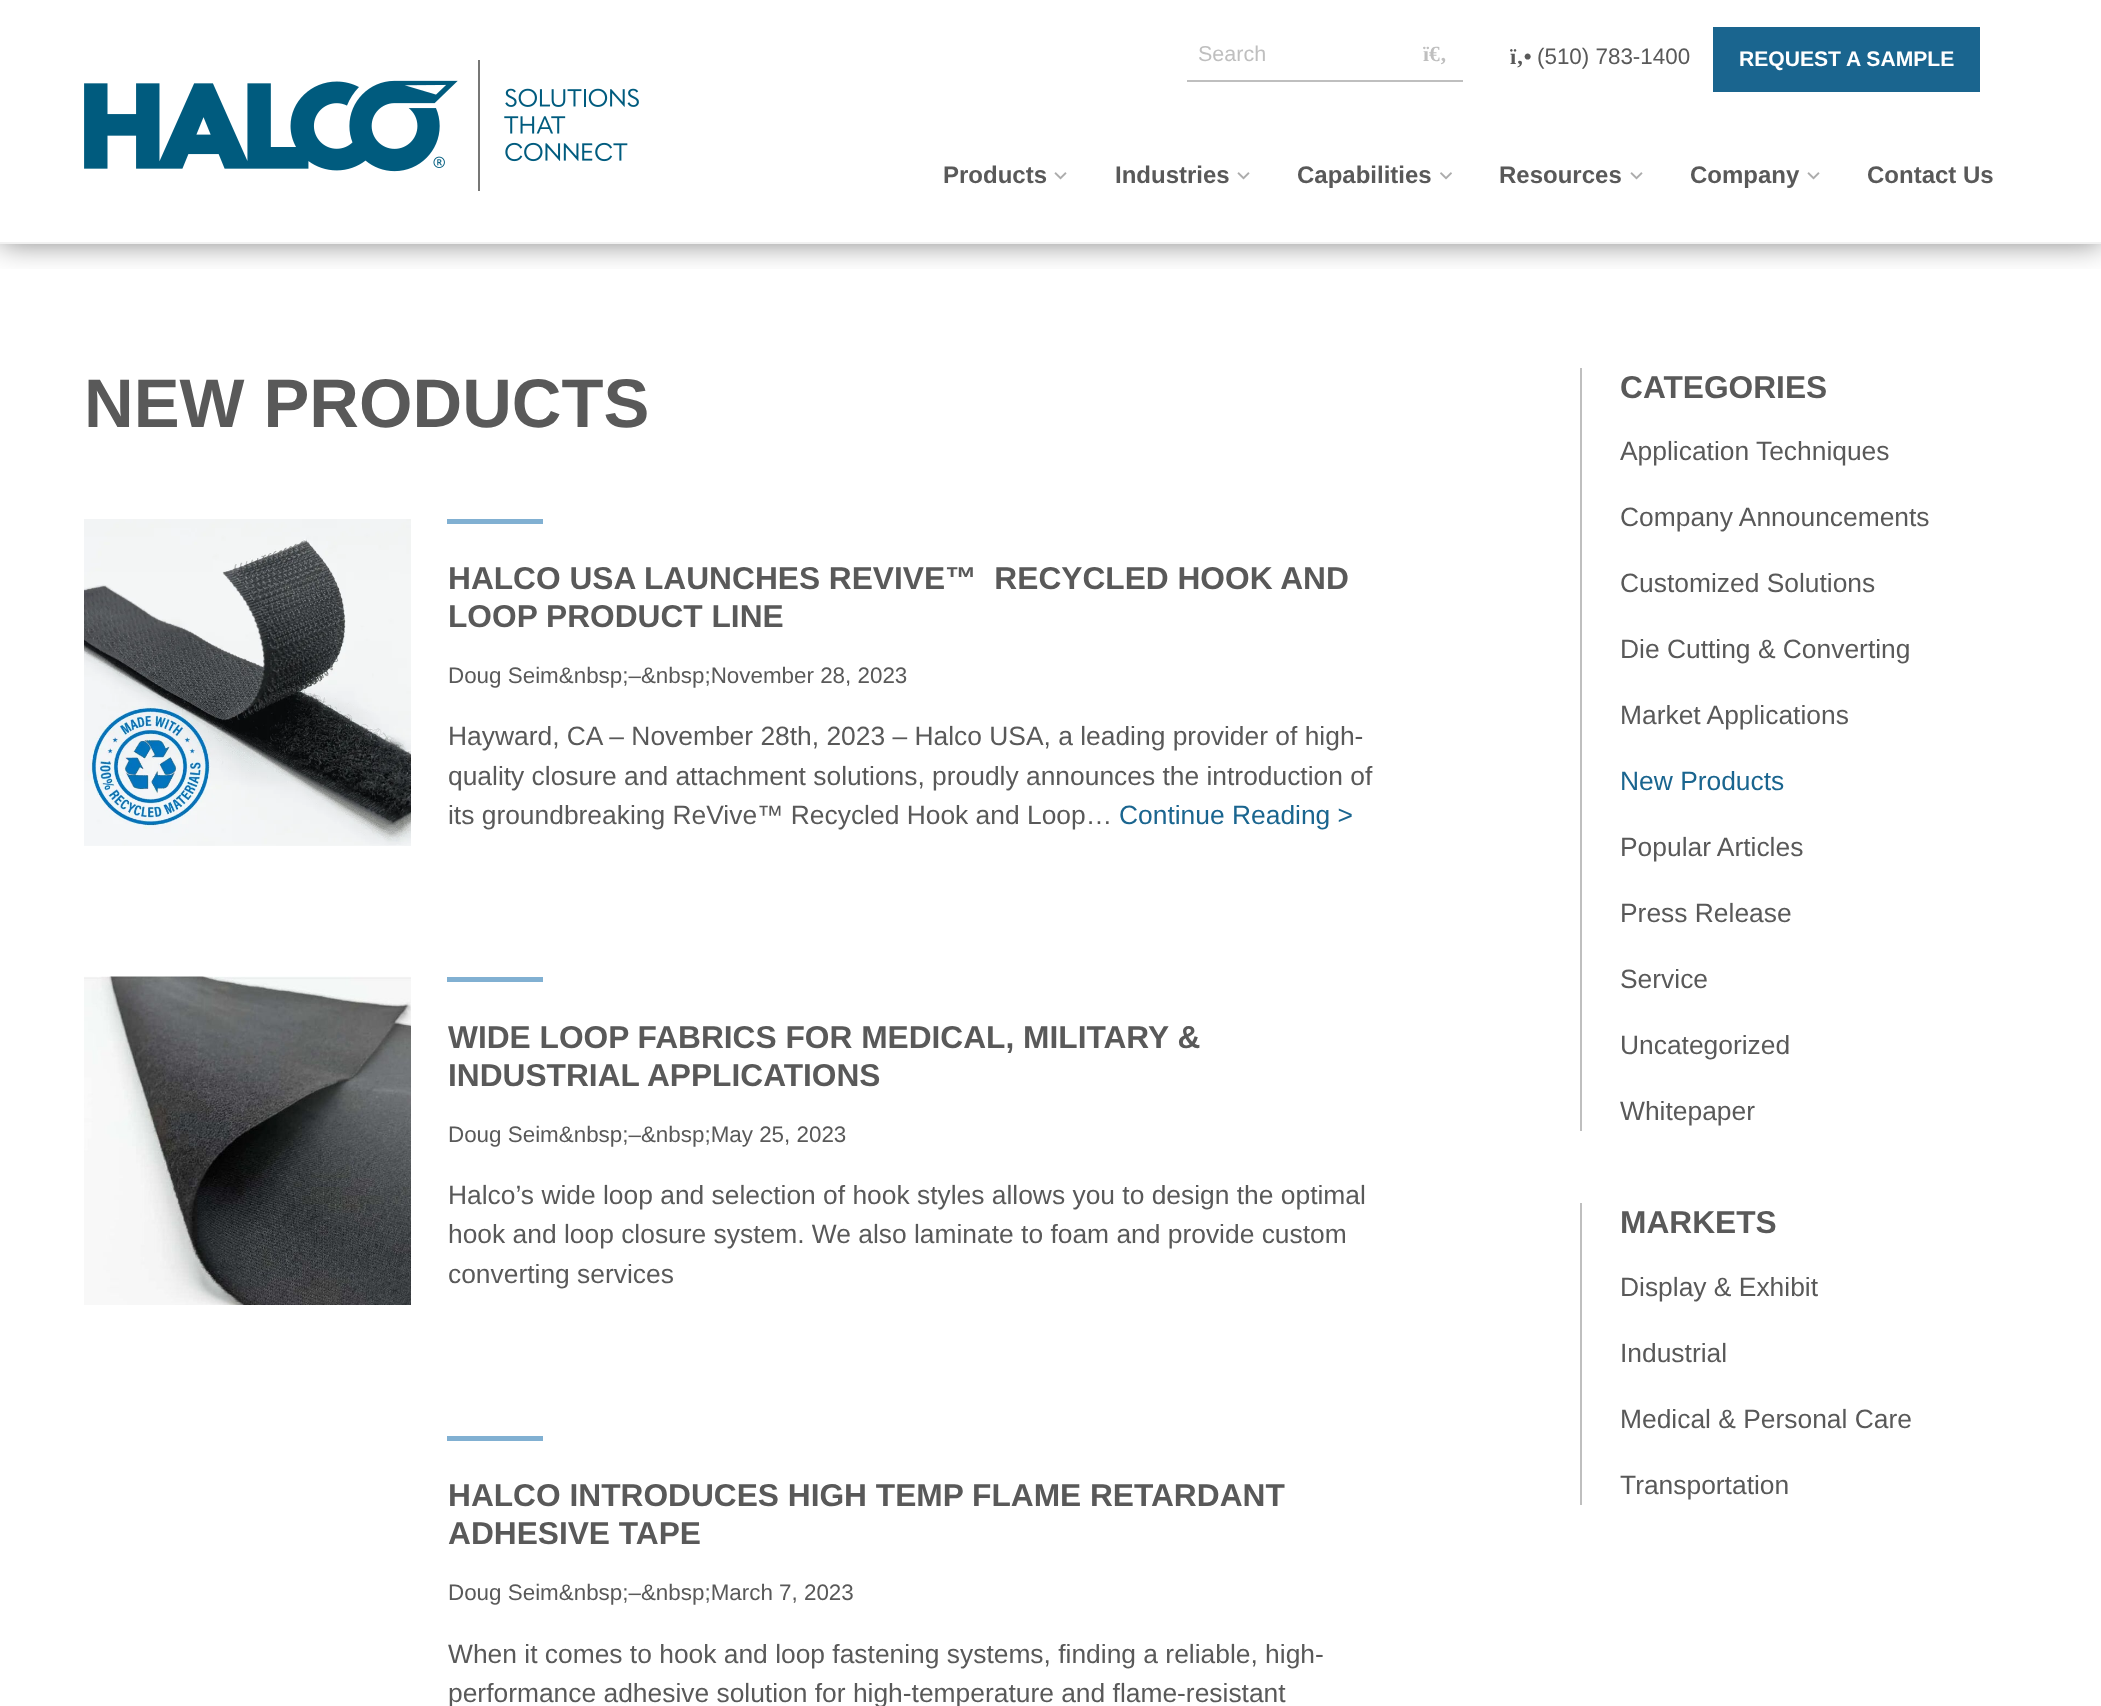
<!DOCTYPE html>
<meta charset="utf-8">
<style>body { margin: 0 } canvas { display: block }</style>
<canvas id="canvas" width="2101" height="1706"></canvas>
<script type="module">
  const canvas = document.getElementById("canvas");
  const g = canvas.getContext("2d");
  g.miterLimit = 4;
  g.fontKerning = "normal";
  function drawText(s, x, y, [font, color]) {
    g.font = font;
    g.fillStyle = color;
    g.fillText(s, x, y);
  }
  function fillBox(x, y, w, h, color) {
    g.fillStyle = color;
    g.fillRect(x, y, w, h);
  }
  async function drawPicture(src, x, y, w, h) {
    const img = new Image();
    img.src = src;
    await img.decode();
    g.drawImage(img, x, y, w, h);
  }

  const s1 = ["21.5px Liberation Sans", "#BFBFBF"];
  const s2 = ["bold 21.5px Liberation Serif", "#BFBFBF"];
  const s3 = ["bold 22.4px Liberation Serif", "#595959"];
  const s4 = ["22.4px Liberation Sans", "#595959"];
  const s5 = ["bold 21.1px Liberation Sans", "#FFFFFF"];
  const s6 = ["bold 24px Liberation Sans", "#595959"];
  const s7 = ["bold 68.75px Liberation Sans", "#595959"];
  const s8 = ["bold 31.7px Liberation Sans", "#595959"];
  const s9 = ["26.4px Liberation Sans", "#595959"];
  const s10 = ["26.4px Liberation Sans", "#1A658F"];

  fillBox(0, 0, 2101, 1706, "#FFFFFF");
  g.save();
  g.beginPath();
  g.rect(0, 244, 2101, 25);
  g.clip();
  g.fillStyle = "rgba(0, 0, 0, 0.5)";
  g.filter = "blur(15px)";
  g.beginPath();
  g.rect(0, 0, 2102, 243);
  g.fill();
  g.filter = "none";
  g.restore();
  fillBox(0, 242, 2101, 2, "#F1F1F1");
  await drawPicture("pic1.png", 84, 60, 555, 131);
  fillBox(1187, 80, 276, 2, "#BFBFBF");
  drawText("Search", 1198, 61, s1);
  drawText("ï€‚", 1423, 61, s2);
  drawText("ï‚•", 1510, 64, s3);
  drawText("(510) 783-1400", 1537, 64, s4);
  fillBox(1713, 27, 267, 65, "#1A658F");
  drawText("REQUEST A SAMPLE", 1739, 66, s5);
  drawText("Products", 943, 183, s6);
  await drawPicture("pic2.png", 1054, 172, 13, 8);
  drawText("Industries", 1115, 183, s6);
  await drawPicture("pic2.png", 1237, 172, 13, 8);
  drawText("Capabilities", 1297, 183, s6);
  await drawPicture("pic3.png", 1440, 172, 12, 8);
  drawText("Resources", 1499, 183, s6);
  await drawPicture("pic2.png", 1630, 172, 13, 8);
  drawText("Company", 1690, 183, s6);
  await drawPicture("pic2.png", 1807, 172, 13, 8);
  drawText("Contact Us", 1867, 183, s6);
  drawText("NEW PRODUCTS", 84, 427, s7);
  await drawPicture("pic4.png", 84, 519, 327, 327);
  fillBox(447, 519, 96, 5, "#81B0D2");
  drawText("HALCO USA LAUNCHES REVIVE™  RECYCLED HOOK AND", 448, 589, s8);
  drawText("LOOP PRODUCT LINE", 448, 627, s8);
  drawText("Doug Seim&nbsp;–&nbsp;November 28, 2023", 448, 683, s4);
  drawText("Hayward, CA – November 28th, 2023 – Halco USA, a leading provider of high-", 448, 745, s9);
  drawText("quality closure and attachment solutions, proudly announces the introduction of", 448, 785, s9);
  drawText("its groundbreaking ReVive™ Recycled Hook and Loop…", 448, 824, s9);
  drawText("Continue Reading >", 1119, 824, s10);
  await drawPicture("pic5.png", 84, 976, 327, 329);
  fillBox(447, 977, 96, 5, "#81B0D2");
  drawText("WIDE LOOP FABRICS FOR MEDICAL, MILITARY &", 448, 1048, s8);
  drawText("INDUSTRIAL APPLICATIONS", 448, 1086, s8);
  drawText("Doug Seim&nbsp;–&nbsp;May 25, 2023", 448, 1142, s4);
  drawText("Halco’s wide loop and selection of hook styles allows you to design the optimal", 448, 1204, s9);
  drawText("hook and loop closure system. We also laminate to foam and provide custom", 448, 1243, s9);
  drawText("converting services", 448, 1283, s9);
  fillBox(447, 1436, 96, 5, "#81B0D2");
  drawText("HALCO INTRODUCES HIGH TEMP FLAME RETARDANT", 448, 1506, s8);
  drawText("ADHESIVE TAPE", 448, 1544, s8);
  drawText("Doug Seim&nbsp;–&nbsp;March 7, 2023", 448, 1600, s4);
  drawText("When it comes to hook and loop fastening systems, finding a reliable, high-", 448, 1663, s9);
  drawText("performance adhesive solution for high-temperature and flame-resistant", 448, 1702, s9);
  fillBox(1580, 368, 2, 763, "#BFBFBF");
  drawText("CATEGORIES", 1620, 398, s8);
  drawText("Application Techniques", 1620, 460, s9);
  drawText("Company Announcements", 1620, 526, s9);
  drawText("Customized Solutions", 1620, 592, s9);
  drawText("Die Cutting & Converting", 1620, 658, s9);
  drawText("Market Applications", 1620, 724, s9);
  drawText("New Products", 1620, 790, s10);
  drawText("Popular Articles", 1620, 856, s9);
  drawText("Press Release", 1620, 922, s9);
  drawText("Service", 1620, 988, s9);
  drawText("Uncategorized", 1620, 1054, s9);
  drawText("Whitepaper", 1620, 1120, s9);
  fillBox(1580, 1203, 2, 302, "#BFBFBF");
  drawText("MARKETS", 1620, 1233, s8);
  drawText("Display & Exhibit", 1620, 1296, s9);
  drawText("Industrial", 1620, 1362, s9);
  drawText("Medical & Personal Care", 1620, 1428, s9);
  drawText("Transportation", 1620, 1494, s9);
</script>
